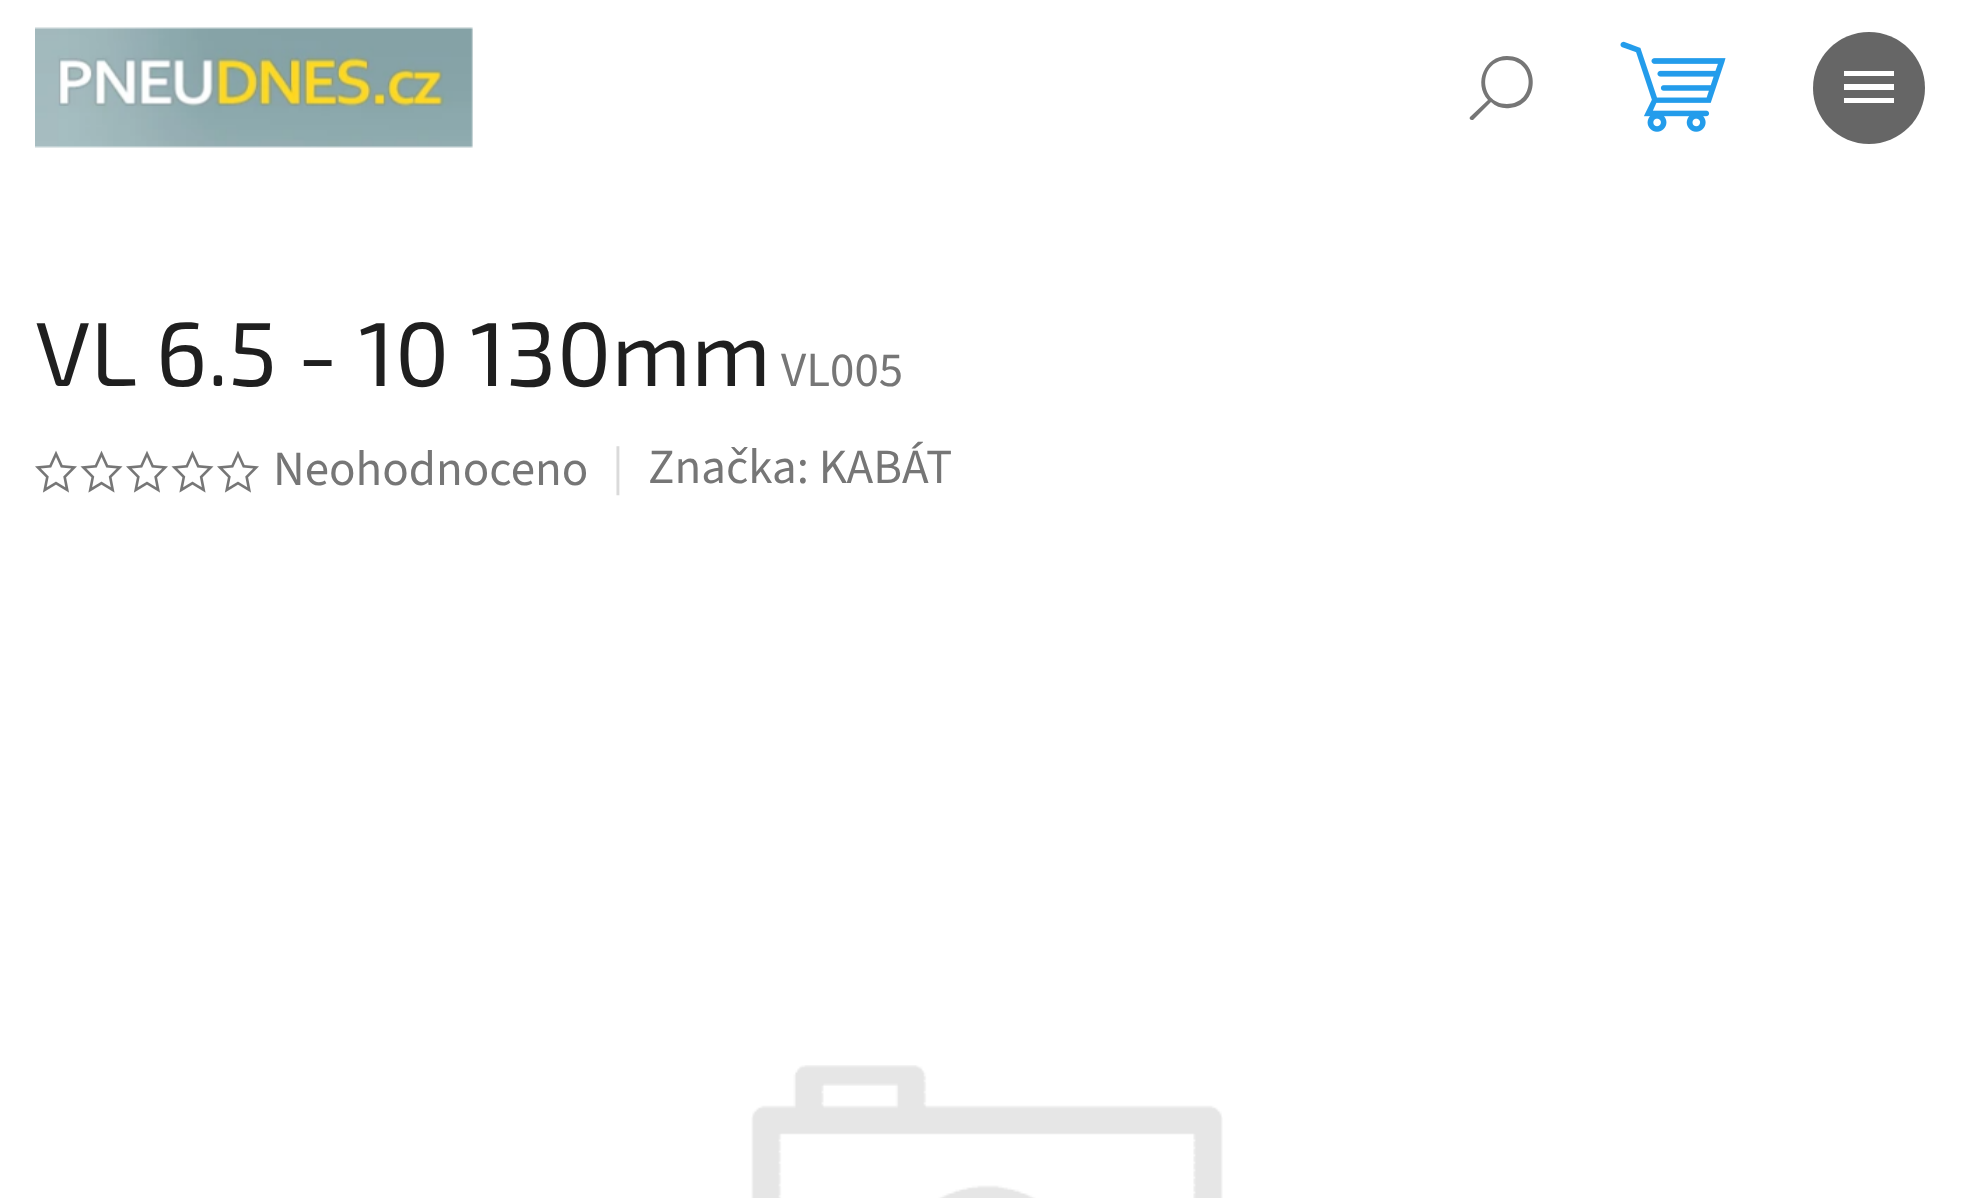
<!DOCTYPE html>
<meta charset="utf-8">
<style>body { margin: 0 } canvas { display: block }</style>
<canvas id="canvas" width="1974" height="1198"></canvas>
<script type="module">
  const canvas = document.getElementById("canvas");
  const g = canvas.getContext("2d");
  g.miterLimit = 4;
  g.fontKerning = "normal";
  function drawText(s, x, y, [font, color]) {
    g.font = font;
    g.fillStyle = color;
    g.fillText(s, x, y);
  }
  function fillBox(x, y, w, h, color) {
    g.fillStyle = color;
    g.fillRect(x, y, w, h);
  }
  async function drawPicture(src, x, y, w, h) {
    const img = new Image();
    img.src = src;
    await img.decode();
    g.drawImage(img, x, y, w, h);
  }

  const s1 = ["91px 'Exo 2'", "#1F1F1F"];
  const s2 = ["49px 'Source Sans 3'", "#767676"];
  const s3 = ["49px 'Source Sans 3'", "#DADADA"];

  fillBox(0, 0, 1974, 1198, "#FFFFFF");
  await drawPicture("pic1.png", 35, 27, 438, 121);
  await drawPicture("pic2.png", 1620, 41, 106, 91);
  g.fillStyle = "#767676";
  g.beginPath();
  g.moveTo(1507, 56);
  g.bezierCurveTo(1485, 56, 1473, 83, 1488, 100);
  g.lineTo(1470, 117);
  g.bezierCurveTo(1469, 118, 1470, 120, 1472, 120);
  g.lineTo(1473, 120);
  g.lineTo(1491, 102);
  g.bezierCurveTo(1496, 107, 1503, 109, 1510, 108);
  g.bezierCurveTo(1542, 105, 1540, 56, 1507, 56);
  g.closePath();
  g.moveTo(1507, 60);
  g.bezierCurveTo(1536, 60, 1536, 104, 1507, 104);
  g.bezierCurveTo(1478, 104, 1478, 60, 1507, 60);
  g.closePath();
  g.fill();
  g.fillStyle = "#666666";
  g.beginPath();
  g.arc(1869, 88, 56, 0, Math.PI * 2);
  g.fill();
  g.fillStyle = "#FFFFFF";
  g.beginPath();
  g.moveTo(1844, 103);
  g.lineTo(1894, 103);
  g.lineTo(1894, 98);
  g.lineTo(1844, 98);
  g.closePath();
  g.moveTo(1844, 90);
  g.lineTo(1894, 90);
  g.lineTo(1894, 84);
  g.lineTo(1844, 84);
  g.closePath();
  g.moveTo(1844, 71);
  g.lineTo(1844, 76);
  g.lineTo(1894, 76);
  g.lineTo(1894, 71);
  g.closePath();
  g.fill();
  drawText("VL 6.5 - 10 130mm", 35, 386, s1);
  drawText("VL005", 781, 386, s2);
  await drawPicture("pic3.png", 35, 450, 42, 43);
  await drawPicture("pic4.png", 80, 450, 43, 43);
  await drawPicture("pic3.png", 126, 450, 42, 43);
  await drawPicture("pic4.png", 171, 450, 43, 43);
  await drawPicture("pic3.png", 217, 450, 42, 43);
  drawText("Neohodnoceno", 273, 485, s2);
  drawText("|", 612, 483, s3);
  drawText("Značka: KABÁT", 648, 483, s2);
  await drawPicture("pic5.png", 751, 1065, 472, 133);
</script>
